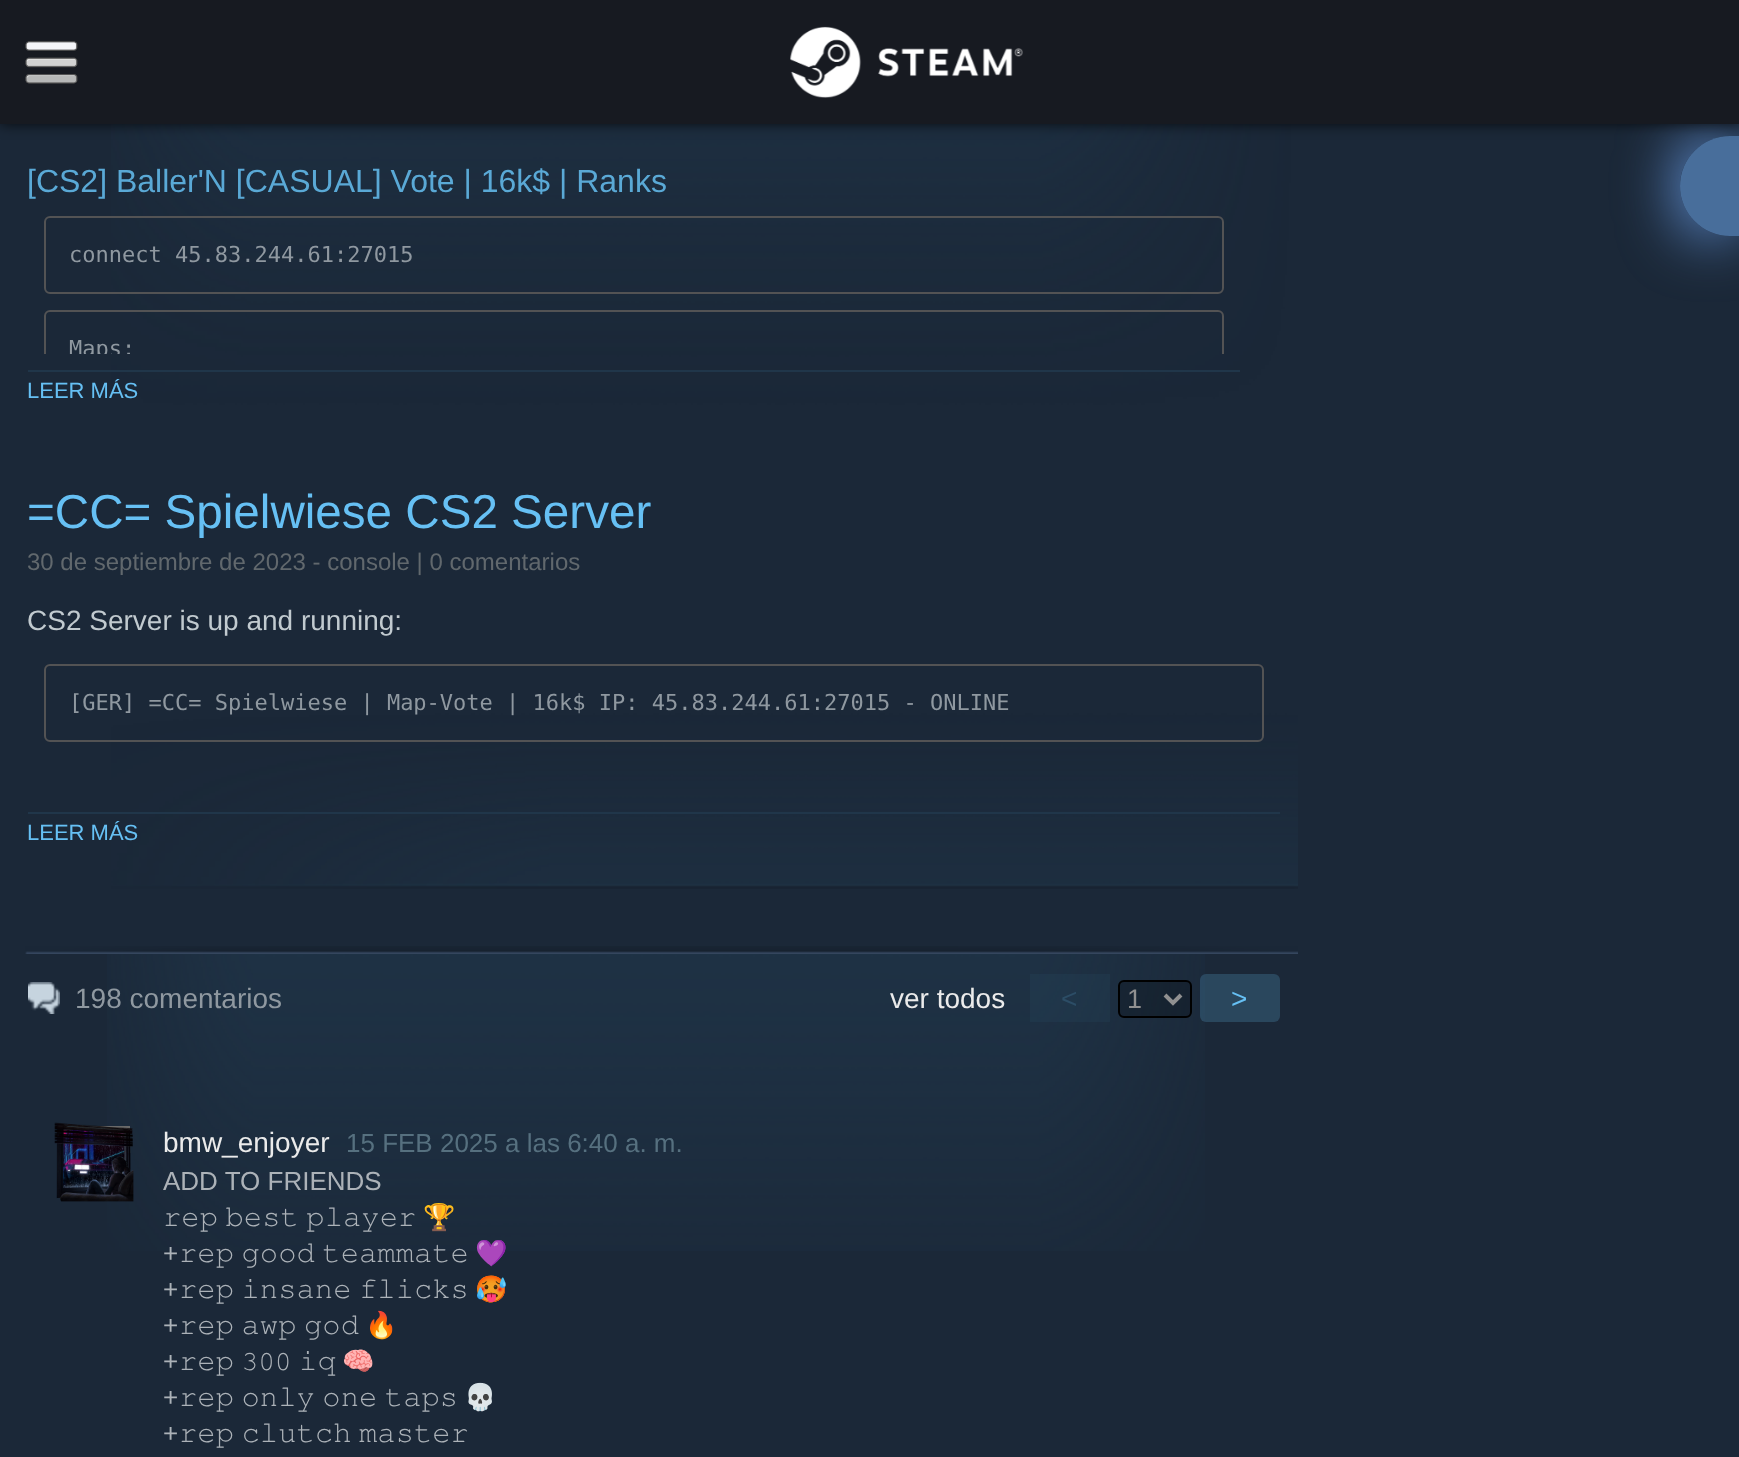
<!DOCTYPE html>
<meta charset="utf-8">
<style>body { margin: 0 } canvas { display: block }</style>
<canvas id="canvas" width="1739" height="1457"></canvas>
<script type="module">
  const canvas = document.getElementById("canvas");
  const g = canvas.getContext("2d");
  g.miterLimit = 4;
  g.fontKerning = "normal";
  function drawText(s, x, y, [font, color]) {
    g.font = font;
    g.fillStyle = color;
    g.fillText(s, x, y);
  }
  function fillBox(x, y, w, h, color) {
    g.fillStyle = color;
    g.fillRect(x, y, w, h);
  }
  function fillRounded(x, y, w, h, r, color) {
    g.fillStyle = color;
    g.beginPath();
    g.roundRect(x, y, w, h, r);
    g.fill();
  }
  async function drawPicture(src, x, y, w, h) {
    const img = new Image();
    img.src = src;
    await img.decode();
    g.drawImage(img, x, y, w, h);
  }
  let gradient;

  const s1 = ["32px Liberation Sans", "#5AA9D6"];
  const s2 = ["22px DejaVu Sans Mono", "#8F98A0"];
  const s3 = ["22px Liberation Sans", "#66C0F4"];
  const s4 = ["47.6px Liberation Sans", "#66C0F4"];
  const s5 = ["24px Liberation Sans", "#61686D"];
  const s6 = ["28px Liberation Sans", "#C1CACF"];
  const s7 = ["28px Liberation Sans", "#8F98A0"];
  const s8 = ["28px Liberation Sans", "#EBEBEB"];
  const s9 = ["28px Liberation Sans", "#2C4D66"];
  const s10 = ["27px Liberation Sans", "#909090"];
  const s11 = ["28px Liberation Sans", "#66C0F4"];
  const s12 = ["26px Liberation Sans", "#56707F"];
  const s13 = ["26px Liberation Sans", "#ACB2B8"];
  const s14 = ["26px FreeSerif", "#ACB2B8"];
  const s15 = ["26px Noto Color Emoji", "#ACB2B8"];

  fillBox(0, 0, 1739, 1457, "#1B2838");
  await drawPicture("pic3.png", 111, 124, 1187, 765);
  g.save();
  g.beginPath();
  g.moveTo(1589, 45);
  g.lineTo(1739, 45);
  g.lineTo(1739, 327);
  g.lineTo(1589, 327);
  g.closePath();
  g.moveTo(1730, 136);
  g.lineTo(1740, 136);
  g.lineTo(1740, 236);
  g.lineTo(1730, 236);
  g.bezierCurveTo(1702.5, 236, 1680, 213.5, 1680, 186);
  g.bezierCurveTo(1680, 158.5, 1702.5, 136, 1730, 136);
  g.closePath();
  g.clip("evenodd");
  g.fillStyle = "#6799E2";
  g.filter = "blur(30px)";
  g.beginPath();
  g.roundRect(1680, 136, 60, 100, 50);
  g.fill();
  g.filter = "none";
  g.restore();
  g.fillStyle = "rgba(104, 157, 221, 0.6)";
  g.beginPath();
  g.moveTo(1730, 136);
  g.lineTo(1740, 136);
  g.lineTo(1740, 236);
  g.lineTo(1730, 236);
  g.bezierCurveTo(1702.5, 236, 1680, 213.5, 1680, 186);
  g.bezierCurveTo(1680, 158.5, 1702.5, 136, 1730, 136);
  g.closePath();
  g.fill();
  g.fillStyle = "rgba(0, 0, 0, 0.75)";
  g.filter = "blur(7px)";
  g.beginPath();
  g.rect(0, 0, 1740, 124);
  g.fill();
  g.filter = "none";
  fillBox(0, 0, 1739, 124, "#171A21");
  await drawPicture("pic1.png", 25, 41, 53, 43);
  await drawPicture("pic2.png", 790, 26, 233, 72);
  drawText("[CS2] Baller'N [CASUAL] Vote | 16k$ | Ranks", 27, 192, s1);
  g.beginPath();
  g.roundRect(45, 217, 1178, 76, 5);
  g.strokeStyle = "#535354";
  g.lineWidth = 2;
  g.stroke();
  drawText("connect 45.83.244.61:27015", 69, 262, s2);
  fillBox(28, 370, 1212, 2, "#20364A");
  drawText("LEER MÁS", 27, 398, s3);
  g.save();
  g.beginPath();
  g.rect(28, 42, 1212, 312);
  g.clip();
  g.beginPath();
  g.roundRect(45, 311, 1178, 284, 5);
  g.stroke();
  drawText("Maps:", 69, 356, s2);
  g.restore();
  drawText("=CC= Spielwiese CS2 Server", 27, 528, s4);
  drawText("30 de septiembre de 2023 - console | 0 comentarios", 27, 570, s5);
  drawText("CS2 Server is up and running:", 27, 630, s6);
  g.beginPath();
  g.roundRect(45, 665, 1218, 76, 5);
  g.stroke();
  drawText("[GER] =CC= Spielwiese | Map-Vote | 16k$ IP: 45.83.244.61:27015 - ONLINE", 69, 710, s2);
  fillBox(28, 812, 1252, 2, "#20364A");
  drawText("LEER MÁS", 27, 840, s3);
  await drawPicture("pic4.png", 25, 946, 1273, 8);
  await drawPicture("pic5.png", 107, 954, 1098, 297);
  await drawPicture("pic6.png", 28, 982, 32, 32);
  drawText("198 comentarios", 75, 1008, s7);
  drawText("ver todos", 890, 1008, s8);
  fillBox(1030, 974, 80, 48, "rgba(103, 193, 245, 0.04)");
  drawText("<", 1061, 1008, s9);
  g.fillStyle = "rgba(0, 0, 0, 0.2)";
  g.beginPath();
  g.roundRect(1119, 981, 72, 36, 5);
  g.fill();
  g.strokeStyle = "#000000";
  g.stroke();
  g.beginPath();
  g.moveTo(1165, 995);
  g.lineTo(1173, 1003);
  g.lineTo(1181, 995);
  g.strokeStyle = "#909090";
  g.lineWidth = 4;
  g.stroke();
  drawText("1", 1127, 1008, s10);
  fillRounded(1200, 974, 80, 48, 6, "rgba(103, 193, 245, 0.2)");
  drawText(">", 1231, 1008, s11);
  gradient = g.createLinearGradient(94, 1126, 94, 1198);
  gradient.addColorStop(0.05, "#6A6A6A");
  gradient.addColorStop(0.95, "#555555");
  g.fillStyle = gradient;
  g.fillRect(58, 1126, 72, 72);
  await drawPicture("pic8.png", 63, 1130, 62, 58);
  await drawPicture("pic7.png", 54, 1122, 80, 80);
  drawText("bmw_enjoyer", 163, 1152, s8);
  drawText("15 FEB 2025 a las 6:40 a. m.", 346, 1152, s12);
  drawText("ADD TO FRIENDS", 163, 1190, s13);
  g.wordSpacing = "1px";
  drawText("𝚛𝚎𝚙 𝚋𝚎𝚜𝚝 𝚙𝚕𝚊𝚢𝚎𝚛", 163, 1226, s14);
  g.wordSpacing = "0px";
  drawText("🏆", 423, 1226, s15);
  drawText("+", 163, 1262, s13);
  g.wordSpacing = "1px";
  drawText("𝚛𝚎𝚙 𝚐𝚘𝚘𝚍 𝚝𝚎𝚊𝚖𝚖𝚊𝚝𝚎", 179, 1262, s14);
  g.wordSpacing = "0px";
  drawText("💜", 475, 1262, s15);
  drawText("+", 163, 1298, s13);
  g.wordSpacing = "1px";
  drawText("𝚛𝚎𝚙 𝚒𝚗𝚜𝚊𝚗𝚎 𝚏𝚕𝚒𝚌𝚔𝚜", 179, 1298, s14);
  g.wordSpacing = "0px";
  drawText("🥵", 475, 1298, s15);
  drawText("+", 163, 1334, s13);
  g.wordSpacing = "1px";
  drawText("𝚛𝚎𝚙 𝚊𝚠𝚙 𝚐𝚘𝚍", 179, 1334, s14);
  g.wordSpacing = "0px";
  drawText("🔥", 365, 1334, s15);
  drawText("+", 163, 1370, s13);
  g.wordSpacing = "1px";
  drawText("𝚛𝚎𝚙 𝟹𝟶𝟶 𝚒𝚚", 179, 1370, s14);
  g.wordSpacing = "0px";
  drawText("🧠", 342, 1370, s15);
  drawText("+", 163, 1406, s13);
  g.wordSpacing = "1px";
  drawText("𝚛𝚎𝚙 𝚘𝚗𝚕𝚢 𝚘𝚗𝚎 𝚝𝚊𝚙𝚜", 179, 1406, s14);
  g.wordSpacing = "0px";
  drawText("💀", 464, 1406, s15);
  drawText("+", 163, 1442, s13);
  g.wordSpacing = "1px";
  drawText("𝚛𝚎𝚙 𝚌𝚕𝚞𝚝𝚌𝚑 𝚖𝚊𝚜𝚝𝚎𝚛", 179, 1442, s14);
</script>
